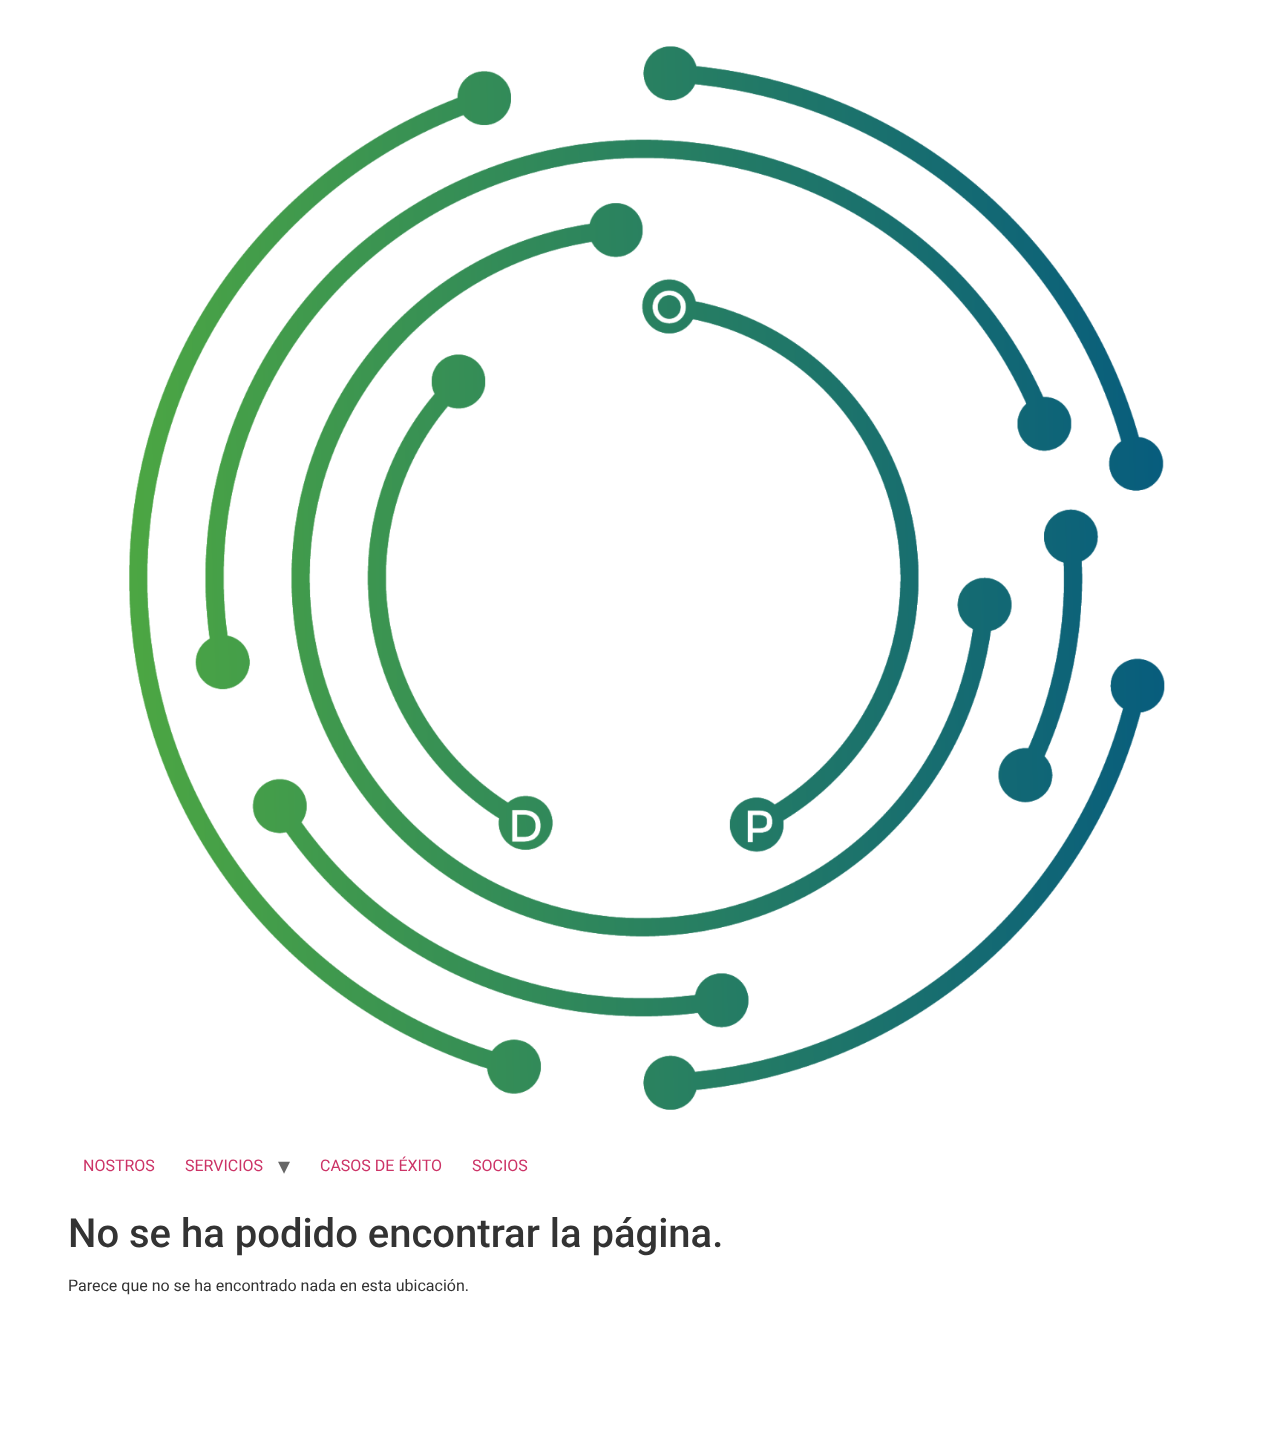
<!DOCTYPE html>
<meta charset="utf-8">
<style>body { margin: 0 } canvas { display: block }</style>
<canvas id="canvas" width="1276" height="1447"></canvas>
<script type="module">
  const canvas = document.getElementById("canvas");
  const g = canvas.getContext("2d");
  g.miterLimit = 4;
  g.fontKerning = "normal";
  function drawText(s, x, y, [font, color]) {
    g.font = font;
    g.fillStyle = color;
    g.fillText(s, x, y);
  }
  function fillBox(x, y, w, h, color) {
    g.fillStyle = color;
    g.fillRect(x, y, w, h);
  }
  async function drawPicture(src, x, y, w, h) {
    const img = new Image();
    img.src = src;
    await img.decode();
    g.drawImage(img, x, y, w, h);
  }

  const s1 = ["16px Roboto", "#CC3366"];
  const s2 = ["24px DejaVu Sans", "#666666"];
  const s3 = ["500 40px Roboto", "#333333"];
  const s4 = ["16px Roboto", "#333333"];

  fillBox(0, 0, 1276, 1447, "#FFFFFF");
  await drawPicture("pic1.png", 129, 46, 1036, 1064);
  drawText("NOSTROS", 83, 1171, s1);
  drawText("SERVICIOS", 185, 1171, s1);
  drawText("▾", 278, 1174, s2);
  drawText("CASOS DE ÉXITO", 320, 1171, s1);
  drawText("SOCIOS", 472, 1171, s1);
  drawText("No se ha podido encontrar la página.", 68, 1247, s3);
  drawText("Parece que no se ha encontrado nada en esta ubicación.", 68, 1291, s4);
</script>
